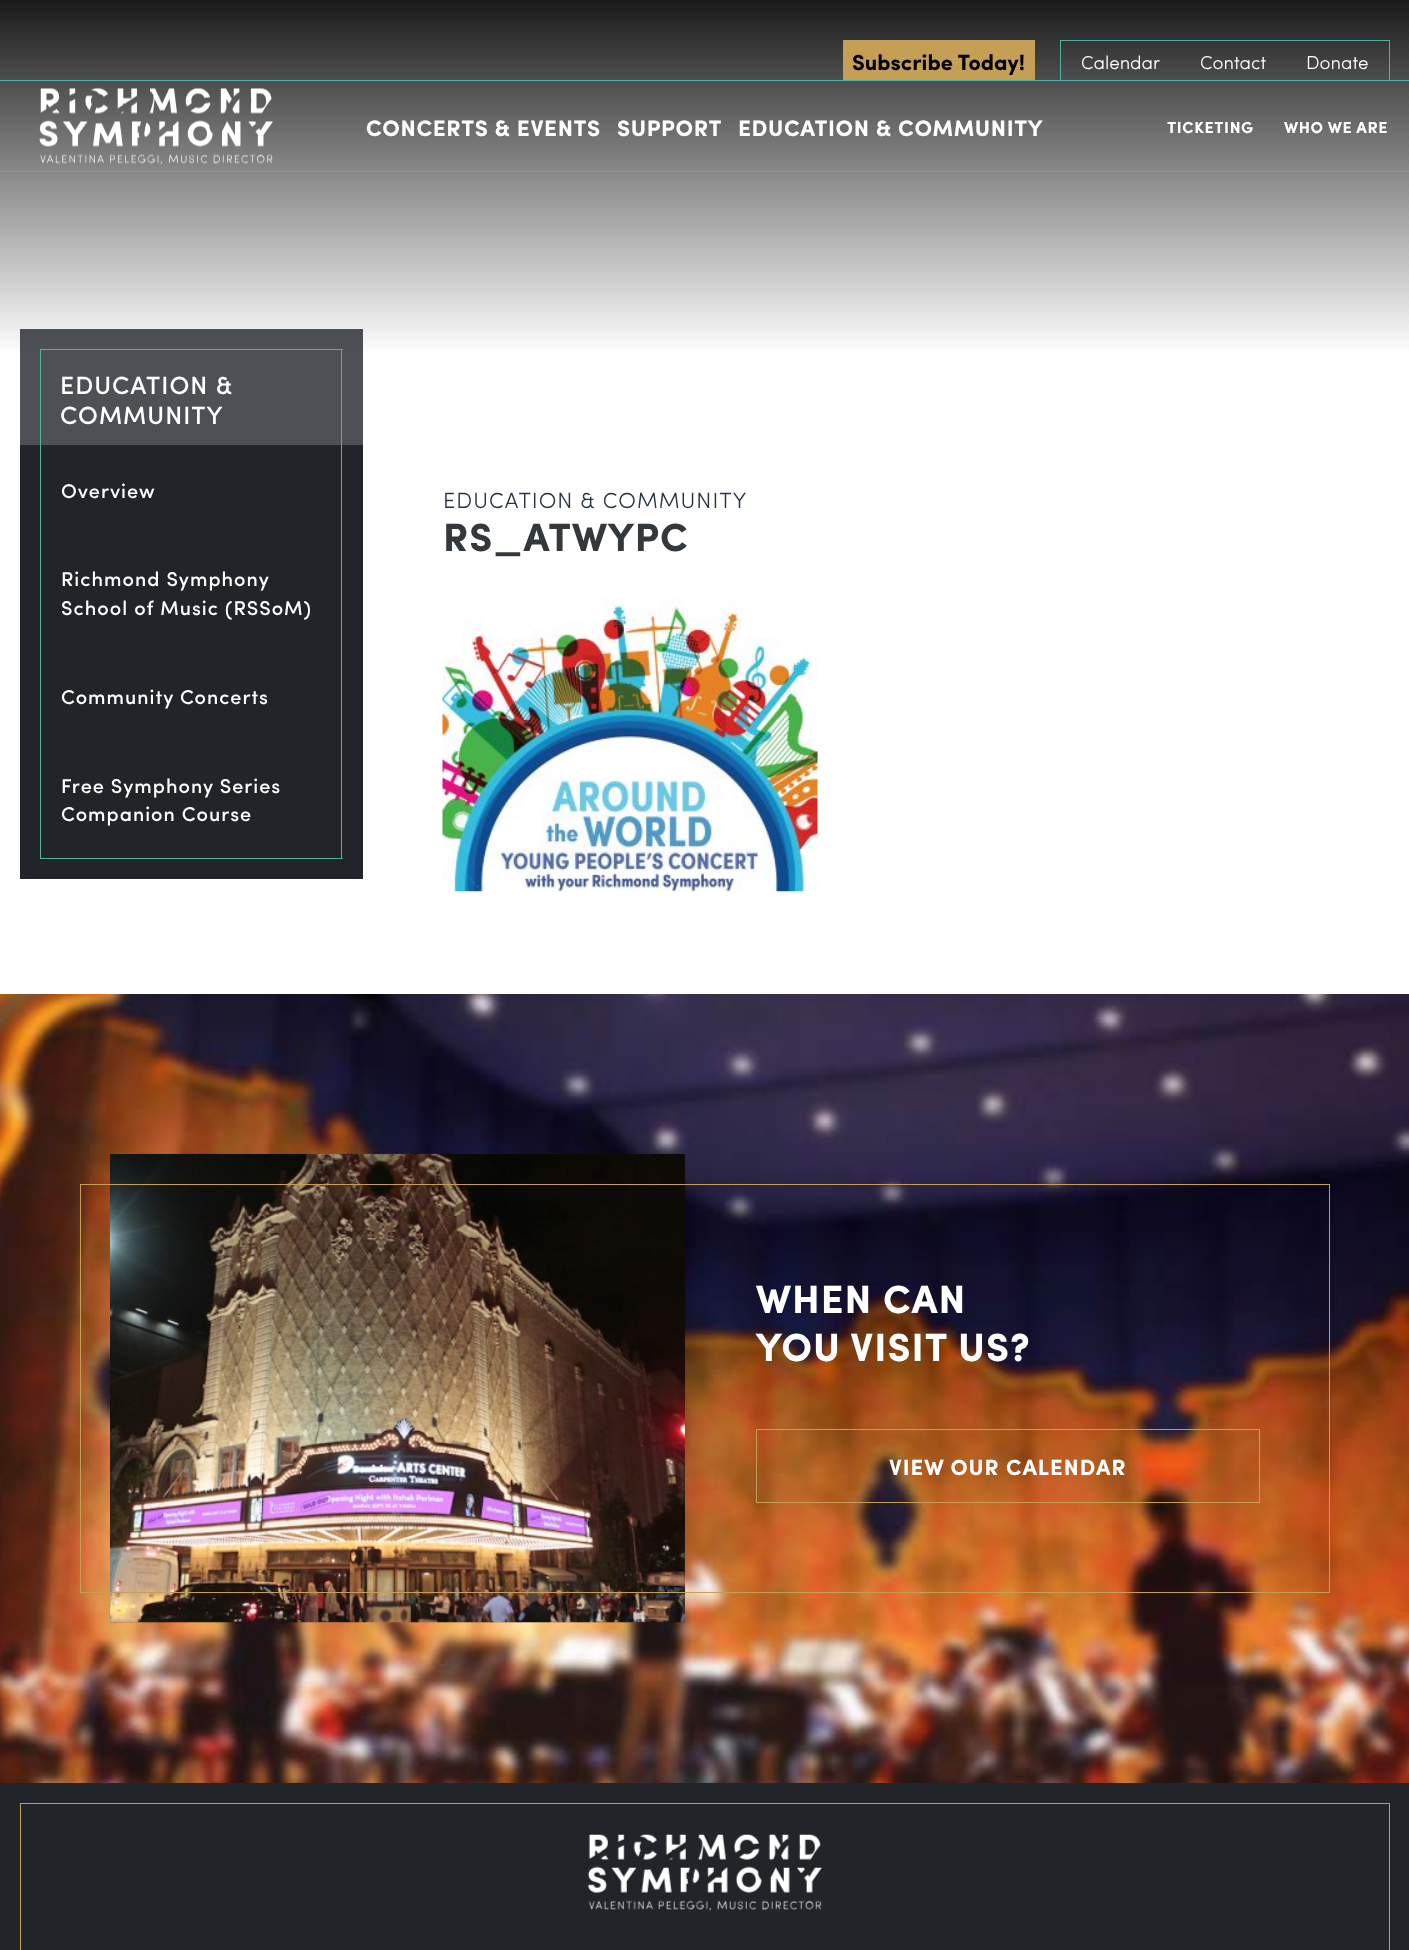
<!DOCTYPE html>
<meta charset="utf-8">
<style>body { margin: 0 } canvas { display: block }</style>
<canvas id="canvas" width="1409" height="1950"></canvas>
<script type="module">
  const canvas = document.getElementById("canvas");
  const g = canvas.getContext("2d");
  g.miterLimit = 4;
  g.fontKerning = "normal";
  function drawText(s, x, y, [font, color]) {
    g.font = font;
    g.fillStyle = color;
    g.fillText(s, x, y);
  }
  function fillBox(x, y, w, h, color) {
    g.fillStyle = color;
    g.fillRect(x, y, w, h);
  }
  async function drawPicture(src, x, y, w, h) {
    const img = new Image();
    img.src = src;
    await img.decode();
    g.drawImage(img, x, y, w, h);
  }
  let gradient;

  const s1 = ["bold 22px Sofia", "#000000"];
  const s2 = ["300 18.75px Sofia", "#FFFFFF"];
  const s3 = ["bold 22.5px Sofia", "#FFFFFF"];
  const s4 = ["bold 16px Sofia", "#FFFFFF"];
  const s5 = ["500 25px Sofia", "#FFFFFF"];
  const s6 = ["500 20px Sofia", "#FFFFFF"];
  const s7 = ["300 22px Sofia", "#273543"];
  const s8 = ["bold 39.5px Sofia", "#33383D"];
  const s9 = ["bold 39.5px Sofia", "#FFFFFF"];
  const s10 = ["bold 22px Sofia", "#FFFFFF"];

  fillBox(0, 0, 1409, 1950, "#FFFFFF");
  gradient = g.createLinearGradient(705, 0, 705, 445);
  gradient.addColorStop(0, "#1A1A1A");
  gradient.addColorStop(0.8, "#FFFFFF");
  gradient.addColorStop(1, "#FFFFFF");
  g.fillStyle = gradient;
  g.fillRect(0, 0, 1409, 352);
  gradient = g.createLinearGradient(705, 0, 705, 445);
  gradient.addColorStop(0, "#202327");
  gradient.addColorStop(0.8, "#4D5155");
  gradient.addColorStop(1, "#4D5155");
  g.fillStyle = gradient;
  g.fillRect(20, 329, 343, 116);
  fillBox(843, 40, 192, 40, "#C59F55");
  drawText("Subscribe Today!", 852, 70, s1);
  fillBox(1060, 40, 330, 1, "#4FB49F");
  fillBox(1389, 40, 1, 40, "#4FB49F");
  fillBox(1060, 40, 1, 40, "#4FB49F");
  drawText("Calendar", 1081, 69, s2);
  drawText("Contact", 1200, 69, s2);
  drawText("Donate", 1306, 69, s2);
  await drawPicture("pic1.png", 39, 87, 234, 78);
  g.letterSpacing = "0.6px";
  drawText("CONCERTS & EVENTS", 366, 136, s3);
  drawText("SUPPORT", 617, 136, s3);
  drawText("EDUCATION & COMMUNITY", 738, 136, s3);
  drawText("TICKETING", 1167, 133, s4);
  drawText("WHO WE ARE", 1284, 133, s4);
  fillBox(0, 80, 1409, 1, "#4FB49F");
  fillBox(0, 171, 1409, 1, "#4FB49F");
  fillBox(40, 349, 303, 1, "#4FB49F");
  fillBox(341, 349, 1, 96, "#4FB49F");
  fillBox(40, 349, 1, 96, "#4FB49F");
  g.letterSpacing = "1px";
  drawText("EDUCATION &", 60, 394, s5);
  drawText("COMMUNITY", 60, 424, s5);
  fillBox(20, 445, 343, 434, "#21252A");
  fillBox(341, 445, 1, 414, "#4FB49F");
  fillBox(40, 858, 303, 1, "#4FB49F");
  fillBox(40, 445, 1, 414, "#4FB49F");
  drawText("Overview", 61, 498, s6);
  drawText("Richmond Symphony", 61, 586, s6);
  drawText("School of Music (RSSoM)", 61, 615, s6);
  drawText("Community Concerts", 61, 704, s6);
  drawText("Free Symphony Series", 61, 793, s6);
  drawText("Companion Course", 61, 821, s6);
  drawText("EDUCATION & COMMUNITY", 443, 508, s7);
  drawText("RS_ATWYPC", 443, 551, s8);
  await drawPicture("pic2.png", 442, 598, 376, 294);
  await drawPicture("pic3.png", 0, 994, 1409, 789);
  await drawPicture("pic4.png", 110, 1153, 575, 470);
  g.strokeStyle = "#C59F55";
  g.strokeRect(80.5, 1184.5, 1249, 408);
  drawText("WHEN CAN", 756, 1313, s9);
  drawText("YOU VISIT US?", 756, 1361, s9);
  g.strokeRect(756.5, 1429.5, 503, 73);
  drawText("VIEW OUR CALENDAR", 889, 1475, s10);
  fillBox(0, 1783, 1409, 167, "#21252A");
  g.strokeRect(20.5, 1803.5, 1369, 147);
  await drawPicture("pic5.png", 587, 1834, 235, 77);
</script>
